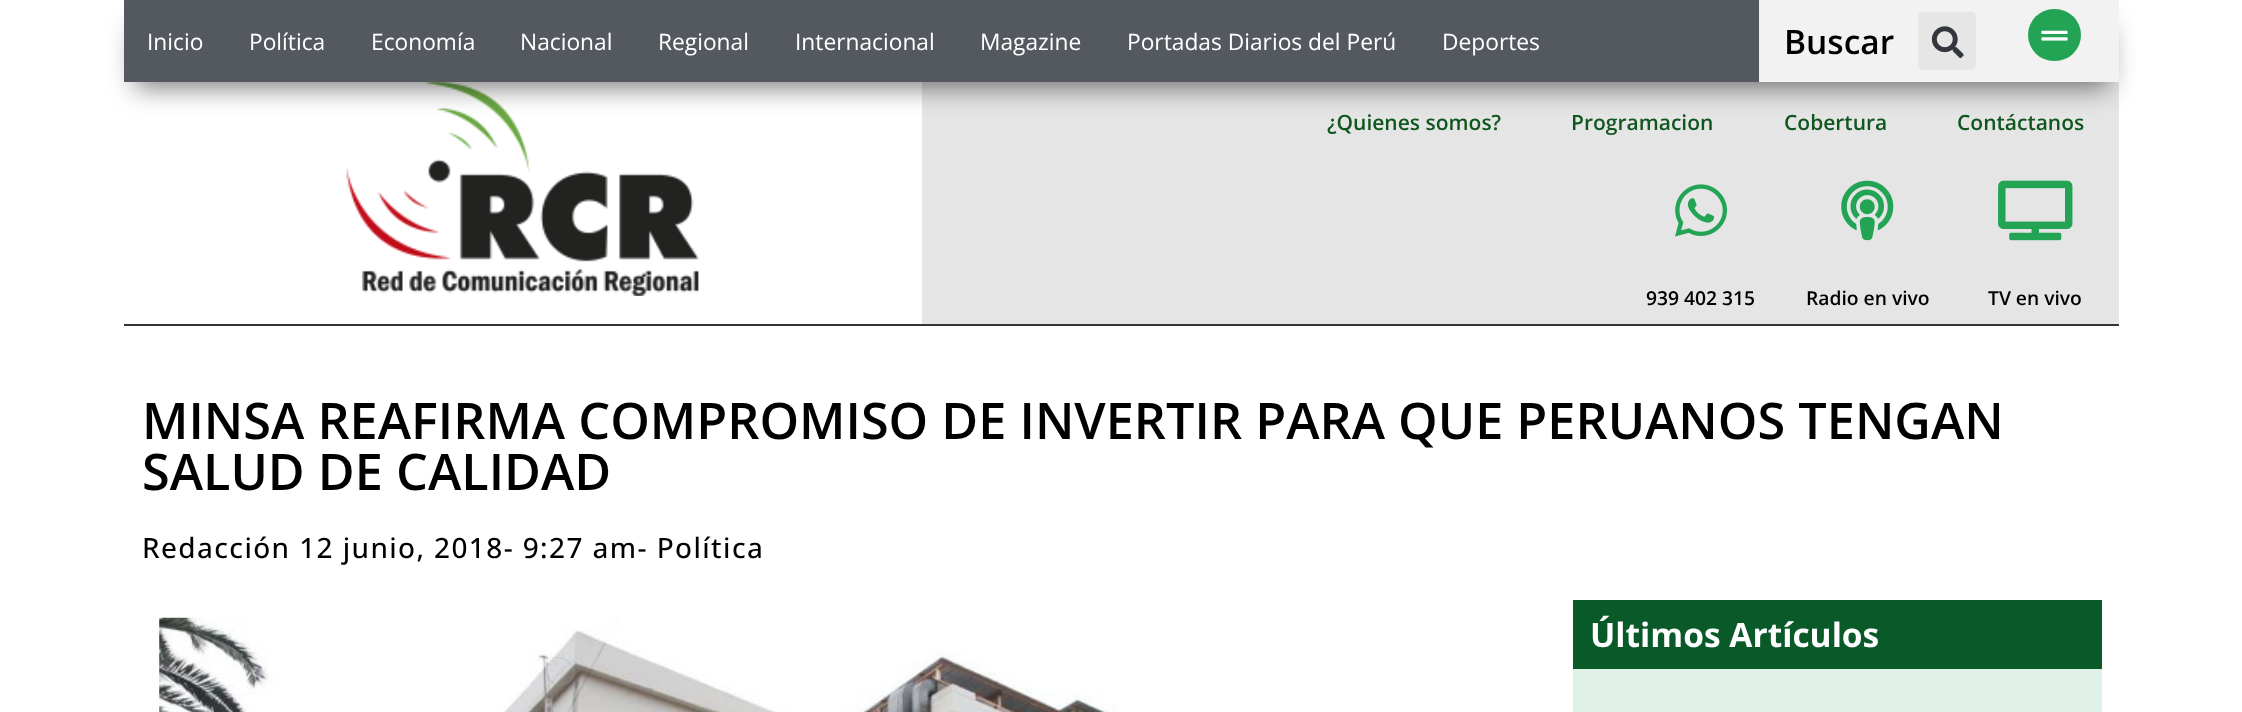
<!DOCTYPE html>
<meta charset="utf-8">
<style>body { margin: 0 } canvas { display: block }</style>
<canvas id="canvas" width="2242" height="712"></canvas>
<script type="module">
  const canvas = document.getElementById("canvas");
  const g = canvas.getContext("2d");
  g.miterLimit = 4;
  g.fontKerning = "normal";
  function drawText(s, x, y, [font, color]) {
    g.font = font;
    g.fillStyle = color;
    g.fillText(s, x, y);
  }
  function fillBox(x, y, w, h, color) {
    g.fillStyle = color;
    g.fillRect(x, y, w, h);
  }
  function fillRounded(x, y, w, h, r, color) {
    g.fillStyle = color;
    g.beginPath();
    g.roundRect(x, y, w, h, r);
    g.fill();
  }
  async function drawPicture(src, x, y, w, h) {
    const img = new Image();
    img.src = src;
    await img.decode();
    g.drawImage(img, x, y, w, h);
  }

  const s1 = ["22.75px Open Sans", "#FFFFFF"];
  const s2 = ["600 33.5px Open Sans", "#000000"];
  const s3 = ["600 21px Open Sans", "#10561F"];
  const s4 = ["600 19.25px Open Sans", "#000000"];
  const s5 = ["600 50.4px Open Sans", "#000000"];
  const s6 = ["500 28px Open Sans", "#000000"];
  const s7 = ["bold 33.5px Open Sans", "#FFFFFF"];

  fillBox(0, 0, 2242, 712, "#FFFFFF");
  await drawPicture("pic3.png", 346, 82, 353, 214);
  fillBox(922, 82, 1197, 242, "#E5E5E5");
  g.fillStyle = "rgba(0, 0, 0, 0.5)";
  g.filter = "blur(13px)";
  g.beginPath();
  g.rect(135, 26, 1974, 62);
  g.fill();
  g.filter = "none";
  fillBox(1759, 0, 360, 82, "#F2F2F2");
  fillBox(124, 0, 1635, 82, "#54595F");
  drawText("Inicio", 147, 50, s1);
  drawText("Política", 249, 50, s1);
  drawText("Economía", 371, 50, s1);
  drawText("Nacional", 520, 50, s1);
  drawText("Regional", 658, 50, s1);
  drawText("Internacional", 795, 50, s1);
  drawText("Magazine", 980, 50, s1);
  drawText("Portadas Diarios del Perú", 1127, 50, s1);
  drawText("Deportes", 1442, 50, s1);
  drawText("Buscar", 1784, 54, s2);
  fillRounded(1918, 12, 58, 58, 5, "#E6E6E6");
  await drawPicture("pic1.png", 1931, 26, 33, 33);
  fillRounded(2028, 9, 53, 52, 26, "#23A455");
  await drawPicture("pic2.png", 2041, 30, 27, 11);
  fillBox(124, 324, 1995, 2, "#333333");
  drawText("¿Quienes somos?", 1327, 130, s3);
  drawText("Programacion", 1571, 130, s3);
  drawText("Cobertura", 1784, 130, s3);
  drawText("Contáctanos", 1957, 130, s3);
  await drawPicture("pic4.png", 1675, 184, 52, 53);
  drawText("939 402 315", 1646, 305, s4);
  await drawPicture("pic5.png", 1841, 180, 53, 61);
  drawText("Radio en vivo", 1806, 305, s4);
  await drawPicture("pic6.png", 1998, 180, 75, 61);
  drawText("TV en vivo", 1988, 305, s4);
  drawText("MINSA REAFIRMA COMPROMISO DE INVERTIR PARA QUE PERUANOS TENGAN", 142, 439, s5);
  drawText("SALUD DE CALIDAD", 142, 490, s5);
  g.letterSpacing = "1.4px";
  drawText("Redacción 12 junio, 2018- 9:27 am- Política", 142, 558, s6);
  await drawPicture("pic7.png", 159, 617, 960, 95);
  fillBox(1573, 669, 529, 43, "#E0F2E7");
  fillBox(1573, 600, 529, 69, "#0A5928");
  g.letterSpacing = "0px";
  drawText("Últimos Artículos", 1590, 647, s7);
</script>
